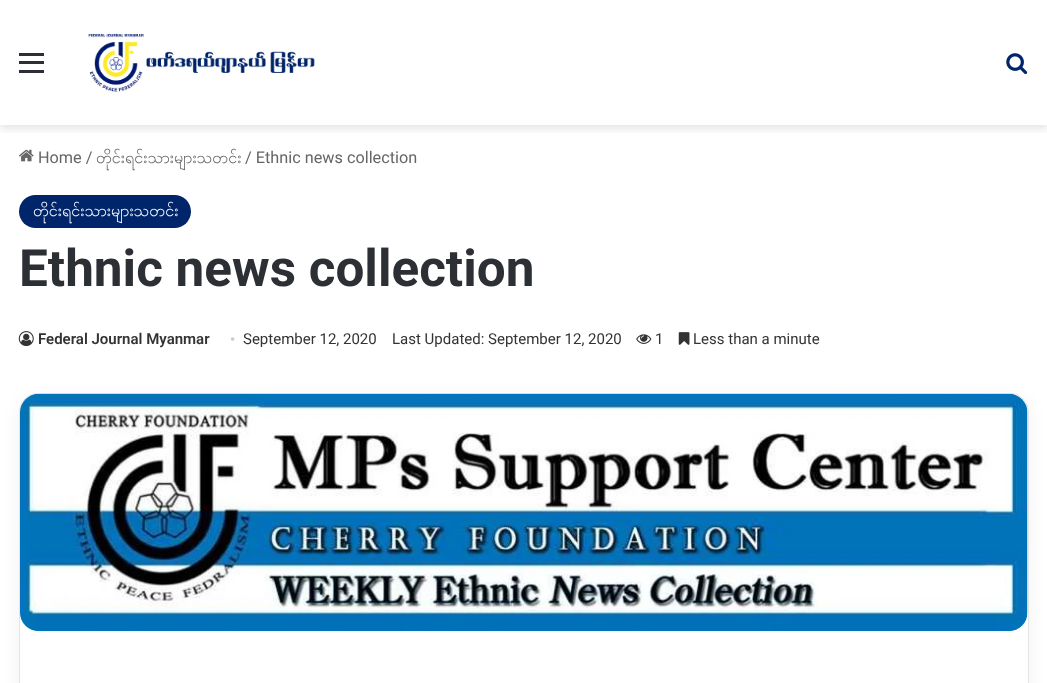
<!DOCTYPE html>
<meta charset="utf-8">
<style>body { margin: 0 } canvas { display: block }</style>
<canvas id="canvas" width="1047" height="683"></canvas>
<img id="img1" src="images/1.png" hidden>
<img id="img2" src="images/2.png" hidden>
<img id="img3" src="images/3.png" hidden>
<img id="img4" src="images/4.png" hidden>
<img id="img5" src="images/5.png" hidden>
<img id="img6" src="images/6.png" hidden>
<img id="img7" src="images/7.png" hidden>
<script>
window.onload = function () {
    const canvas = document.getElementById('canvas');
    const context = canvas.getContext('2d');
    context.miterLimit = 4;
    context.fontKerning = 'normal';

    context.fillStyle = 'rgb(255, 255, 255)';
    context.fillRect(0, 0, 1047, 683);
    context.save();
    context.beginPath();
    context.rect(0, 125, 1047, 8);
    context.clip();
    context.fillStyle = 'rgba(0, 0, 0, 0.1)';
    context.filter = 'blur(4.5px)';
    context.beginPath();
    context.rect(0, 4, 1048, 125);
    context.fill();
    context.filter = 'none';
    context.restore();
    context.fillStyle = 'rgb(44, 47, 52)';
    context.fillRect(19, 61, 25, 3);
    context.fillRect(19, 53, 25, 3);
    context.fillRect(19, 70, 25, 3);
    context.drawImage(document.getElementById('img1'), 88, 33, 227, 59);
    context.drawImage(document.getElementById('img2'), 1006, 53, 22, 22);
    context.drawImage(document.getElementById('img3'), 19, 149, 15, 13);
    context.fillStyle = 'rgb(0, 37, 107)';
    context.beginPath();
    context.roundRect(19, 195, 172, 33, 16.5);
    context.fill();
    context.drawImage(document.getElementById('img4'), 18, 331, 16, 16);
    context.drawImage(document.getElementById('img5'), 636, 334, 16, 10);
    context.drawImage(document.getElementById('img6'), 678, 332, 12, 13);
    context.fillStyle = 'rgba(0, 0, 0, 0.05)';
    context.filter = 'blur(9.5px)';
    context.beginPath();
    context.roundRect(19, 399, 1010, 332, 19);
    context.fill();
    context.filter = 'none';
    context.fillStyle = 'rgb(255, 255, 255)';
    context.beginPath();
    context.roundRect(19.5, 393.5, 1009, 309, 18.5);
    context.fill();
    context.strokeStyle = 'rgb(229, 229, 229)';
    context.stroke();
    context.drawImage(document.getElementById('img7'), 20, 393, 1008, 239);
    context.font = '16.25px Roboto';
    context.fillStyle = 'rgb(102, 102, 102)';
    context.fillText('Home /', 38, 163);
    context.font = '16.25px Padauk';
    context.fillText('တိုင်းရင်းသားများသတင်း', 96, 163);
    context.font = '16.25px Roboto';
    context.fillText('/ Ethnic news collection', 245, 163);
    context.font = '16.25px Padauk';
    context.fillStyle = 'rgb(255, 255, 255)';
    context.fillText('တိုင်းရင်းသားများသတင်း', 33, 216);
    context.font = 'bold 51.25px Roboto';
    context.fillStyle = 'rgb(44, 47, 52)';
    context.fillText('Ethnic news collection', 19, 286);
    context.font = '600 15px Roboto';
    context.fillStyle = 'rgb(51, 51, 51)';
    context.fillText('Federal Journal Myanmar', 38, 344);
    context.font = '15px Liberation Serif';
    context.fillStyle = 'rgb(204, 204, 204)';
    context.fillText('•', 230, 344);
    context.font = '15px Roboto';
    context.fillStyle = 'rgb(51, 51, 51)';
    context.fillText('September 12, 2020', 243, 344);
    context.fillText('Last Updated: September 12, 2020', 392, 344);
    context.fillText('1', 655, 344);
    context.fillText('Less than a minute', 693, 344);
};
</script>
